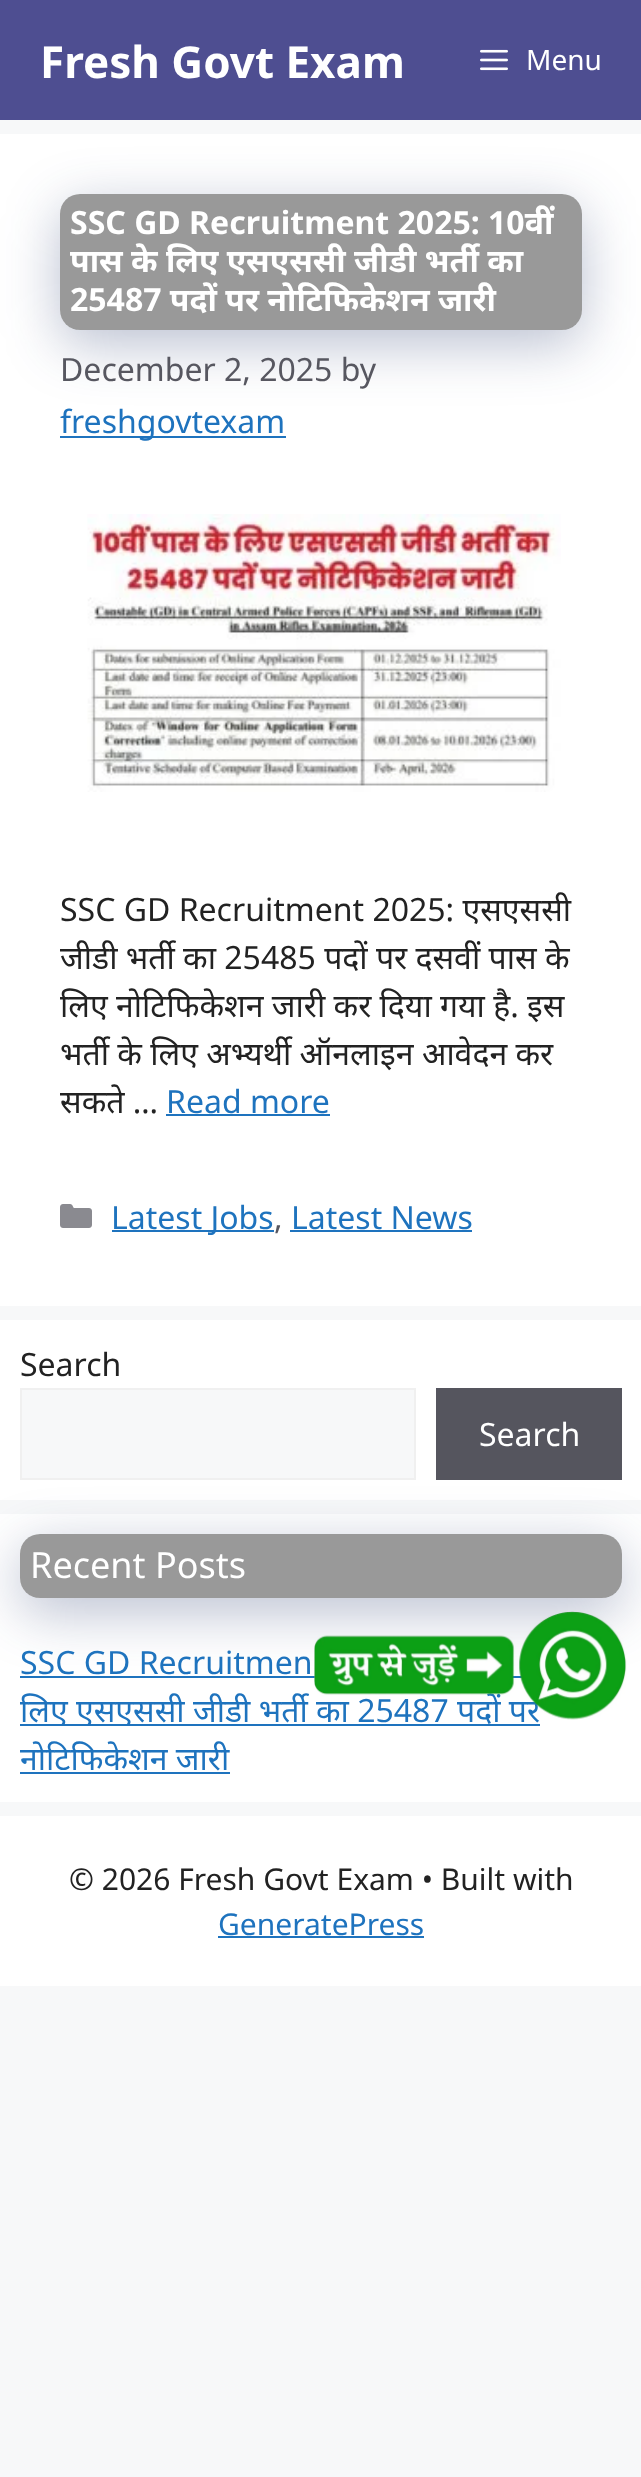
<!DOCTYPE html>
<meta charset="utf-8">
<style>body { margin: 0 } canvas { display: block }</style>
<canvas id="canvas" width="641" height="2477"></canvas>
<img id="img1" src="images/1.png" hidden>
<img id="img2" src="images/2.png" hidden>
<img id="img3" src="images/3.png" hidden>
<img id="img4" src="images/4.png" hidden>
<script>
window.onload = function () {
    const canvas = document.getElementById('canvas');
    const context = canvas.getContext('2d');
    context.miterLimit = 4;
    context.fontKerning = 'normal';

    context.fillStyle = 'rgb(247, 248, 249)';
    context.fillRect(0, 0, 641, 2477);
    context.fillStyle = 'rgb(78, 78, 145)';
    context.fillRect(0, 0, 641, 120);
    context.drawImage(document.getElementById('img1'), 480, 49, 28, 22);
    context.fillStyle = 'rgb(255, 255, 255)';
    context.fillRect(0, 134, 641, 1172);
    context.save();
    context.beginPath();
    context.moveTo(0, 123);
    context.lineTo(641, 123);
    context.lineTo(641, 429);
    context.lineTo(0, 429);
    context.closePath();
    context.moveTo(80, 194);
    context.lineTo(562, 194);
    context.bezierCurveTo(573, 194, 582, 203, 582, 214);
    context.lineTo(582, 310);
    context.bezierCurveTo(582, 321, 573, 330, 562, 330);
    context.lineTo(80, 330);
    context.bezierCurveTo(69, 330, 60, 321, 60, 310);
    context.lineTo(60, 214);
    context.bezierCurveTo(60, 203, 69, 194, 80, 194);
    context.closePath();
    context.clip('evenodd');
    context.fillStyle = 'rgba(23, 43, 99, 0.3)';
    context.filter = 'blur(28px)';
    context.beginPath();
    context.roundRect(60, 208, 522, 136, 20);
    context.fill();
    context.filter = 'none';
    context.restore();
    context.fillStyle = 'rgba(0, 0, 0, 0.4)';
    context.beginPath();
    context.roundRect(60, 194, 522, 136, 20);
    context.fill();
    context.fillStyle = 'rgb(30, 115, 190)';
    context.fillRect(60, 436, 226, 2);
    context.drawImage(document.getElementById('img2'), 87, 514, 474, 278);
    context.fillRect(166, 1114, 164, 2);
    context.drawImage(document.getElementById('img3'), 60, 1204, 32, 24);
    context.fillRect(112, 1230, 162, 2);
    context.fillRect(290, 1230, 182, 2);
    context.fillStyle = 'rgb(255, 255, 255)';
    context.fillRect(0, 1320, 641, 180);
    context.fillRect(0, 1514, 641, 288);
    context.save();
    context.beginPath();
    context.moveTo(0, 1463);
    context.lineTo(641, 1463);
    context.lineTo(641, 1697);
    context.lineTo(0, 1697);
    context.closePath();
    context.moveTo(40, 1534);
    context.lineTo(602, 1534);
    context.bezierCurveTo(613, 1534, 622, 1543, 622, 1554);
    context.lineTo(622, 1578);
    context.bezierCurveTo(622, 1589, 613, 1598, 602, 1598);
    context.lineTo(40, 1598);
    context.bezierCurveTo(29, 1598, 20, 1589, 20, 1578);
    context.lineTo(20, 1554);
    context.bezierCurveTo(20, 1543, 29, 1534, 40, 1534);
    context.closePath();
    context.clip('evenodd');
    context.fillStyle = 'rgba(23, 43, 99, 0.3)';
    context.filter = 'blur(28px)';
    context.beginPath();
    context.roundRect(20, 1548, 602, 64, 20);
    context.fill();
    context.filter = 'none';
    context.restore();
    context.fillStyle = 'rgb(247, 248, 249)';
    context.beginPath();
    context.rect(21, 1389, 394, 90);
    context.fill();
    context.strokeStyle = 'rgb(240, 240, 240)';
    context.lineWidth = 2;
    context.stroke();
    context.fillStyle = 'rgb(85, 85, 94)';
    context.fillRect(436, 1388, 186, 92);
    context.fillStyle = 'rgba(0, 0, 0, 0.4)';
    context.beginPath();
    context.roundRect(20, 1534, 602, 64, 20);
    context.fill();
    context.fillStyle = 'rgb(30, 115, 190)';
    context.fillRect(20, 1676, 502, 2);
    context.fillRect(20, 1724, 520, 2);
    context.fillRect(20, 1772, 210, 2);
    context.fillStyle = 'rgb(255, 255, 255)';
    context.fillRect(0, 1816, 641, 170);
    context.fillStyle = 'rgb(30, 115, 190)';
    context.fillRect(218, 1936, 206, 2);
    context.font = 'bold 44px Noto Sans';
    context.fillStyle = 'rgb(255, 255, 255)';
    context.fillText('Fresh Govt Exam', 40, 78);
    context.font = '28px Noto Sans';
    context.fillText('Menu', 526, 70);
    context.font = 'bold 32px Noto Sans';
    context.fillText('SSC GD Recruitment 2025: 10वीं', 70, 234);
    context.fillText('पास के लिए एसएससी जीडी भर्ती का', 70, 272);
    context.fillText('25487 पदों पर नोटिफिकेशन जारी', 70, 311);
    context.font = '32px Noto Sans';
    context.fillStyle = 'rgb(87, 87, 96)';
    context.fillText('December 2, 2025 by', 60, 381);
    context.fillStyle = 'rgb(30, 115, 190)';
    context.fillText('freshgovtexam', 60, 433);
    context.fillStyle = 'rgb(34, 34, 34)';
    context.fillText('SSC GD Recruitment 2025: एसएससी', 60, 921);
    context.fillText('जीडी भर्ती का 25485 पदों पर दसवीं पास के', 60, 969);
    context.fillText('लिए नोटिफिकेशन जारी कर दिया गया है. इस', 60, 1017);
    context.fillText('भर्ती के लिए अभ्यर्थी ऑनलाइन आवेदन कर', 60, 1065);
    context.fillText('सकते …', 60, 1113);
    context.fillStyle = 'rgb(30, 115, 190)';
    context.fillText('Read more', 166, 1113);
    context.fillText('Latest Jobs', 111, 1229);
    context.fillStyle = 'rgb(87, 87, 96)';
    context.fillText(',', 274, 1229);
    context.fillStyle = 'rgb(30, 115, 190)';
    context.fillText('Latest News', 291, 1229);
    context.fillStyle = 'rgb(34, 34, 34)';
    context.fillText('Search', 20, 1376);
    context.fillStyle = 'rgb(255, 255, 255)';
    context.fillText('Search', 479, 1446);
    context.font = '36px Noto Sans';
    context.fillText('Recent Posts', 30, 1578);
    context.font = '32px Noto Sans';
    context.fillStyle = 'rgb(30, 115, 190)';
    context.fillText('SSC GD Recruitmen', 20, 1674);
    context.fillText('लिए एसएससी जीडी भर्ती का 25487 पदों पर', 20, 1722);
    context.fillText('नोटिफिकेशन जारी', 20, 1770);
    context.drawImage(document.getElementById('img4'), 314, 1611, 313, 109);
    context.font = '30px Noto Sans';
    context.fillStyle = 'rgb(34, 34, 34)';
    context.fillText('© 2026 Fresh Govt Exam • Built with', 69, 1890);
    context.fillStyle = 'rgb(30, 115, 190)';
    context.fillText('GeneratePress', 218, 1935);
};
</script>
